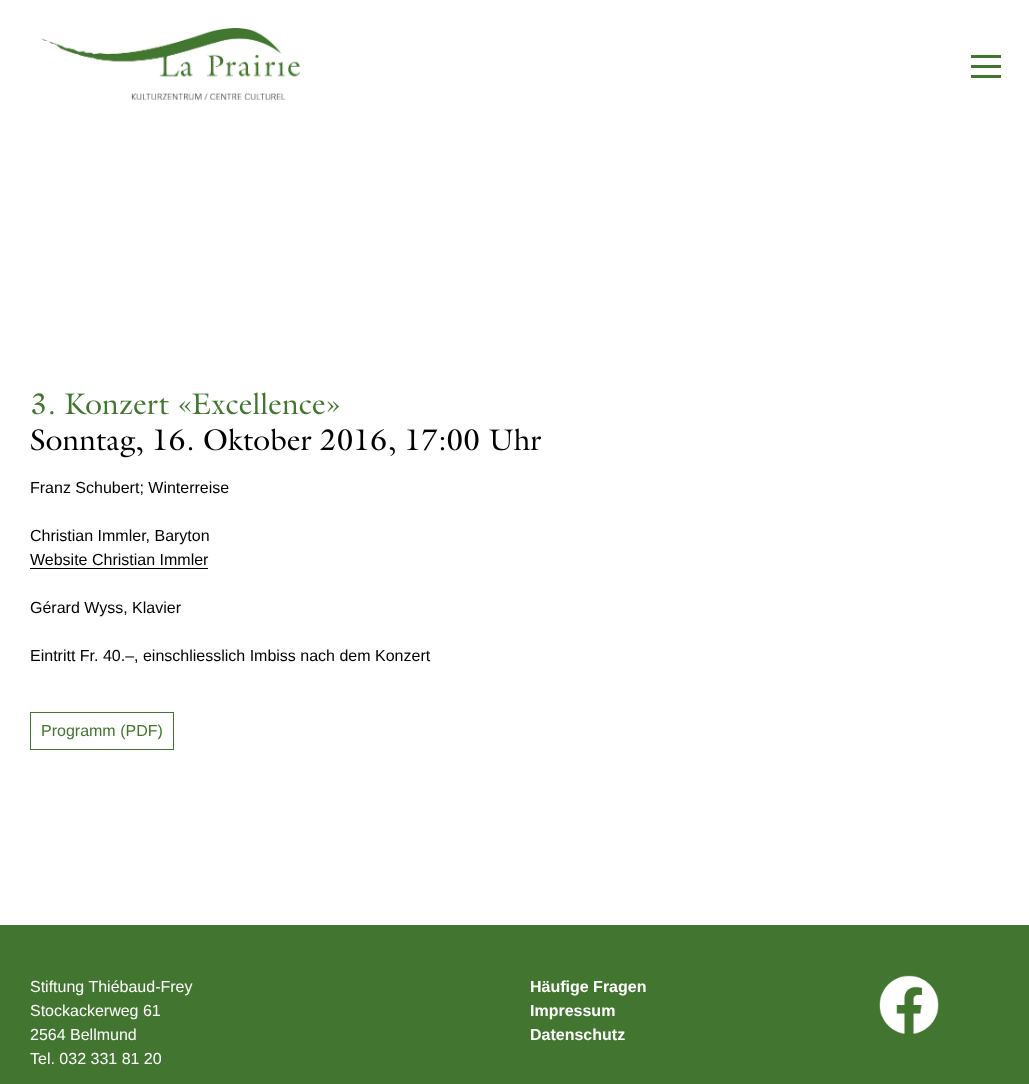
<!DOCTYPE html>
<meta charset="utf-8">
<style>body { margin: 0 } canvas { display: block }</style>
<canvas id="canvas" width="1029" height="1084"></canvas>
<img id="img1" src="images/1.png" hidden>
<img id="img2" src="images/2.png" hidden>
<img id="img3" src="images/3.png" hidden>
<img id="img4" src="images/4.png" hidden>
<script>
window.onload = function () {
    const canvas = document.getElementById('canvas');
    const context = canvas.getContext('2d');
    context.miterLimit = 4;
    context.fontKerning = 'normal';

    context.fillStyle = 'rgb(255, 255, 255)';
    context.fillRect(0, 0, 1029, 1084);
    context.drawImage(document.getElementById('img1'), 40, 28, 260, 72);
    context.fillStyle = 'rgb(66, 118, 48)';
    context.fillRect(971, 65, 30, 3);
    context.fillRect(971, 55, 30, 3);
    context.fillRect(971, 75, 30, 3);
    context.drawImage(document.getElementById('img2'), 32, 392, 307, 23);
    context.drawImage(document.getElementById('img3'), 30, 428, 512, 30);
    context.fillStyle = 'rgb(0, 0, 0)';
    context.fillRect(30, 568, 178, 1);
    context.strokeStyle = 'rgb(66, 118, 48)';
    context.strokeRect(30.5, 712.5, 143, 37);
    context.fillStyle = 'rgb(66, 118, 48)';
    context.fillRect(0, 925, 1029, 159);
    context.drawImage(document.getElementById('img4'), 879, 975, 60, 59);
    context.font = '16px Liberation Sans';
    context.fillStyle = 'rgb(0, 0, 0)';
    context.fillText('Franz Schubert; Winterreise', 30, 493);
    context.fillText('Christian Immler, Baryton', 30, 541);
    context.fillText('Website Christian Immler', 30, 565);
    context.fillText('Gérard Wyss, Klavier', 30, 613);
    context.fillText('Eintritt Fr. 40.–, einschliesslich Imbiss nach dem Konzert', 30, 661);
    context.fillStyle = 'rgb(66, 118, 48)';
    context.fillText('Programm (PDF)', 41, 736);
    context.fillStyle = 'rgb(255, 255, 255)';
    context.fillText('Stiftung Thiébaud-Frey', 30, 992);
    context.fillText('Stockackerweg 61', 30, 1016);
    context.fillText('2564 Bellmund', 30, 1040);
    context.fillText('Tel. 032 331 81 20', 30, 1064);
    context.font = 'bold 16px Liberation Sans';
    context.fillText('Häufige Fragen', 530, 992);
    context.fillText('Impressum', 530, 1016);
    context.fillText('Datenschutz', 530, 1040);
};
</script>
